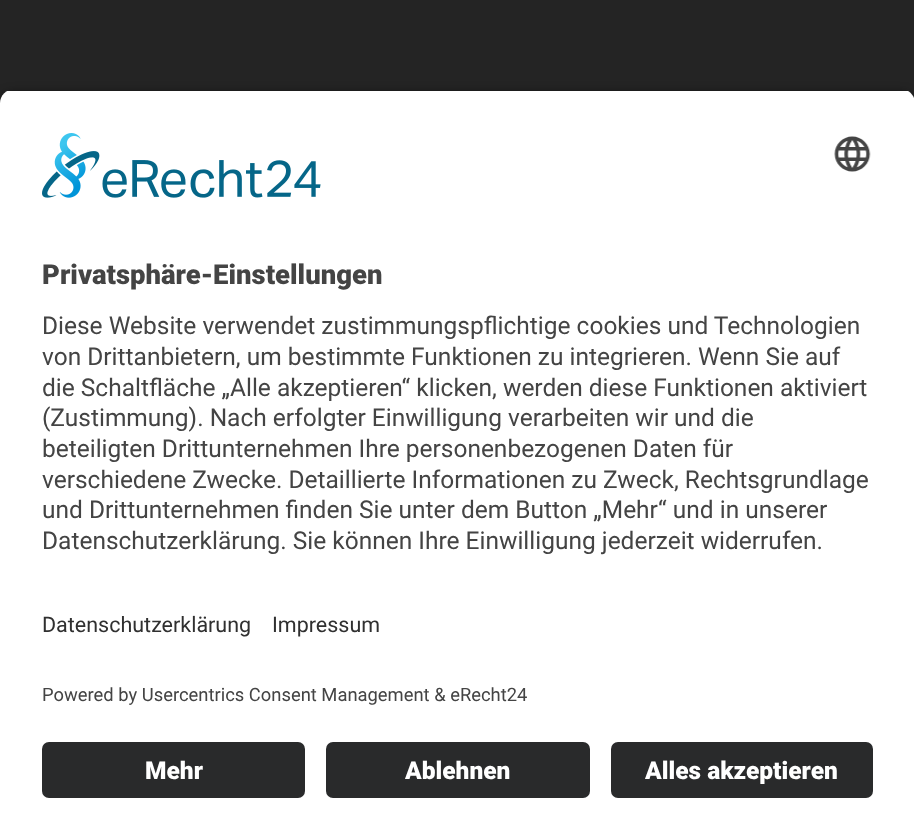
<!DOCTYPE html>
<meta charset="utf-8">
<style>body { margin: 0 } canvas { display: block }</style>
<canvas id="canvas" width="914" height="840"></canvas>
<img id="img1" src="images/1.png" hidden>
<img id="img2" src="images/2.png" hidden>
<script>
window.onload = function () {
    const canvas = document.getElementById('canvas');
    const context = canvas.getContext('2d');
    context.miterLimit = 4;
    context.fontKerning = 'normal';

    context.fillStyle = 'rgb(36, 36, 36)';
    context.fillRect(0, 0, 914, 840);
    context.fillStyle = 'rgba(0, 0, 0, 0.8)';
    context.filter = 'blur(6px)';
    context.beginPath();
    context.roundRect(0, 95, 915, 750, 14);
    context.fill();
    context.filter = 'none';
    context.save();
    context.beginPath();
    context.moveTo(14, 89);
    context.lineTo(901, 89);
    context.bezierCurveTo(908.5, 89, 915, 95.5, 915, 103);
    context.lineTo(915, 564);
    context.lineTo(0, 564);
    context.lineTo(0, 103);
    context.bezierCurveTo(0, 95.5, 6.5, 89, 14, 89);
    context.closePath();
    context.clip();
    context.fillStyle = 'rgb(255, 255, 255)';
    context.fillRect(0, 91, 914, 473);
    context.restore();
    context.drawImage(document.getElementById('img1'), 42, 133, 279, 65);
    context.drawImage(document.getElementById('img2'), 834, 136, 37, 36);
    context.fillStyle = 'rgb(255, 255, 255)';
    context.fillRect(0, 564, 914, 276);
    context.fillStyle = 'rgb(41, 42, 43)';
    context.beginPath();
    context.roundRect(42, 742, 263, 56, 7);
    context.fill();
    context.beginPath();
    context.roundRect(326, 742, 264, 56, 7);
    context.fill();
    context.beginPath();
    context.roundRect(611, 742, 262, 56, 7);
    context.fill();
    context.font = '900 27.5px Roboto';
    context.fillStyle = 'rgb(68, 68, 68)';
    context.fillText('Privatsphäre-Einstellungen', 42, 284);
    context.font = '24.5px Roboto';
    context.fillText('Diese Website verwendet zustimmungspflichtige cookies und Technologien', 42, 334);
    context.fillText('von Drittanbietern, um bestimmte Funktionen zu integrieren. Wenn Sie auf', 42, 365);
    context.fillText('die Schaltfläche „Alle akzeptieren“ klicken, werden diese Funktionen aktiviert', 42, 396);
    context.fillText('(Zustimmung). Nach erfolgter Einwilligung verarbeiten wir und die', 42, 426);
    context.fillText('beteiligten Drittunternehmen Ihre personenbezogenen Daten für', 42, 457);
    context.fillText('verschiedene Zwecke. Detaillierte Informationen zu Zweck, Rechtsgrundlage', 42, 488);
    context.fillText('und Drittunternehmen finden Sie unter dem Button „Mehr“ und in unserer', 42, 518);
    context.fillText('Datenschutzerklärung. Sie können Ihre Einwilligung jederzeit widerrufen.', 42, 549);
    context.font = '21.5px Roboto';
    context.fillStyle = 'rgb(48, 48, 48)';
    context.fillText('Datenschutzerklärung', 42, 632);
    context.fillText('Impressum', 272, 632);
    context.font = '18.4px Roboto';
    context.fillStyle = 'rgb(68, 68, 68)';
    context.fillText('Powered by Usercentrics Consent Management & eRecht24', 42, 701);
    context.font = '900 24.5px Roboto';
    context.fillStyle = 'rgb(255, 255, 255)';
    context.fillText('Mehr', 145, 779);
    context.fillText('Ablehnen', 405, 779);
    context.fillText('Alles akzeptieren', 645, 779);
};
</script>
